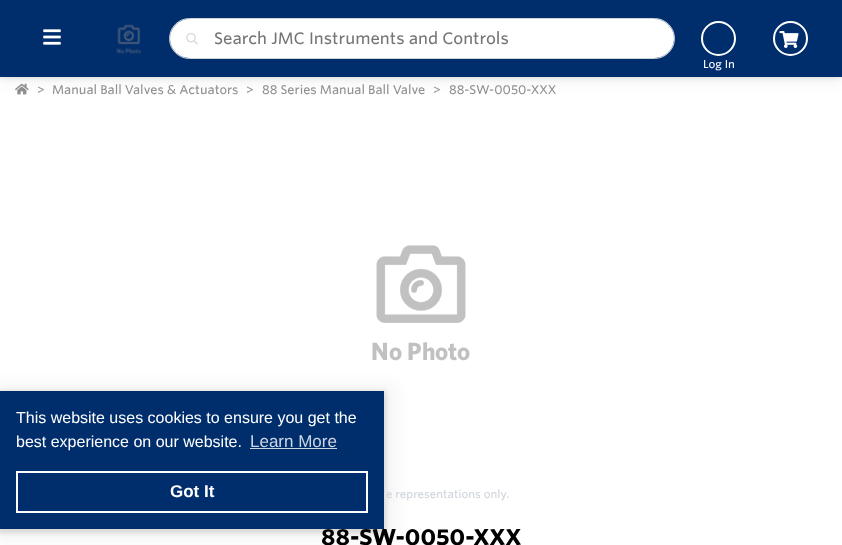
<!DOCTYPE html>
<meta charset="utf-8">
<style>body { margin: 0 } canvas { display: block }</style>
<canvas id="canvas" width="842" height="545"></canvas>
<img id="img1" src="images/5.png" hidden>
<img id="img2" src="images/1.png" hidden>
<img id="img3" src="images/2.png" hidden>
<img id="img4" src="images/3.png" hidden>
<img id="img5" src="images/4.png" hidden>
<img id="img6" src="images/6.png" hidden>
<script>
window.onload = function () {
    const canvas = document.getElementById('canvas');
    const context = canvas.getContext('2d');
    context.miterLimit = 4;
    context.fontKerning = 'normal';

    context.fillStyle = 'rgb(255, 255, 255)';
    context.fillRect(0, 0, 842, 545);
    context.drawImage(document.getElementById('img1'), 15, 83, 14, 12);
    context.fillStyle = 'rgba(0, 0, 0, 0.07)';
    context.filter = 'blur(8px)';
    context.beginPath();
    context.rect(0, 2, 842, 77);
    context.fill();
    context.filter = 'none';
    context.fillStyle = 'rgba(0, 0, 0, 0.1)';
    context.filter = 'blur(2.5px)';
    context.beginPath();
    context.rect(0, 1, 842, 77);
    context.fill();
    context.filter = 'none';
    context.fillStyle = 'rgb(0, 46, 109)';
    context.fillRect(0, 0, 842, 77);
    context.drawImage(document.getElementById('img2'), 43, 29, 18, 16);
    context.drawImage(document.getElementById('img3'), 116, 24, 25, 30);
    context.beginPath();
    context.roundRect(169.5, 18.5, 505, 40, 20);
    context.strokeStyle = 'rgb(206, 212, 218)';
    context.stroke();
    context.fillStyle = 'rgb(255, 255, 255)';
    context.beginPath();
    context.roundRect(170, 19, 504, 39, 19.5);
    context.fill();
    context.drawImage(document.getElementById('img4'), 186, 33, 12, 12);
    context.beginPath();
    context.arc(790.5, 38.5, 16.5, 0, 2 * Math.PI);
    context.strokeStyle = 'rgb(255, 255, 255)';
    context.lineWidth = 2;
    context.stroke();
    context.drawImage(document.getElementById('img5'), 779, 31, 20, 17);
    context.beginPath();
    context.arc(718.5, 38.5, 16.5, 0, 2 * Math.PI);
    context.stroke();
    context.drawImage(document.getElementById('img6'), 372, 245, 98, 116);
    context.fillStyle = 'rgba(0, 0, 0, 0.04)';
    context.filter = 'blur(8px)';
    context.beginPath();
    context.rect(-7, 384, 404, 158);
    context.fill();
    context.filter = 'none';
    context.fillStyle = 'rgba(0, 0, 0, 0.12)';
    context.filter = 'blur(2.5px)';
    context.beginPath();
    context.rect(-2, 391, 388, 142);
    context.fill();
    context.filter = 'none';
    context.font = '300 16px "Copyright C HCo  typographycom"';
    context.fillStyle = 'rgb(117, 117, 117)';
    context.fillText('Search JMC Instruments and Controls', 214, 44);
    context.font = '300 11px "Copyright C HCo  typographycom"';
    context.fillStyle = 'rgb(255, 255, 255)';
    context.fillText('Log In', 703, 68);
    context.font = '300 12.2px "Copyright C HCo  typographycom"';
    context.fillStyle = 'rgb(144, 144, 144)';
    context.fillText('>', 37, 94);
    context.fillText('Manual Ball Valves & Actuators', 52, 94);
    context.fillText('>', 246, 94);
    context.fillText('88 Series Manual Ball Valve', 262, 94);
    context.fillText('>', 433, 94);
    context.fillText('88-SW-0050-XXX', 449, 94);
    context.font = '300 11px "Copyright C HCo  typographycom"';
    context.fillStyle = 'rgb(206, 212, 218)';
    context.fillText('e representations only.', 386, 498);
    context.font = '22px "Copyright C HCo  typographycom"';
    context.fillStyle = 'rgb(0, 0, 0)';
    context.fillText('88-SW-0050-XXX', 321, 545);
    context.fillStyle = 'rgb(0, 46, 109)';
    context.fillRect(0, 391, 384, 138);
    context.font = '16px Liberation Sans';
    context.fillStyle = 'rgb(255, 255, 255)';
    context.fillText('This website uses cookies to ensure you get the', 16, 423);
    context.fillText('best experience on our website.', 16, 447);
    context.font = '17px Liberation Sans';
    context.fillStyle = 'rgb(204, 213, 226)';
    context.fillText('Learn More', 250, 447);
    context.fillRect(250, 448, 87, 1);
    context.strokeRect(17, 472, 350, 40);
    context.font = 'bold 17px Liberation Sans';
    context.fillStyle = 'rgb(255, 255, 255)';
    context.fillText('Got It', 170, 497);
};
</script>
